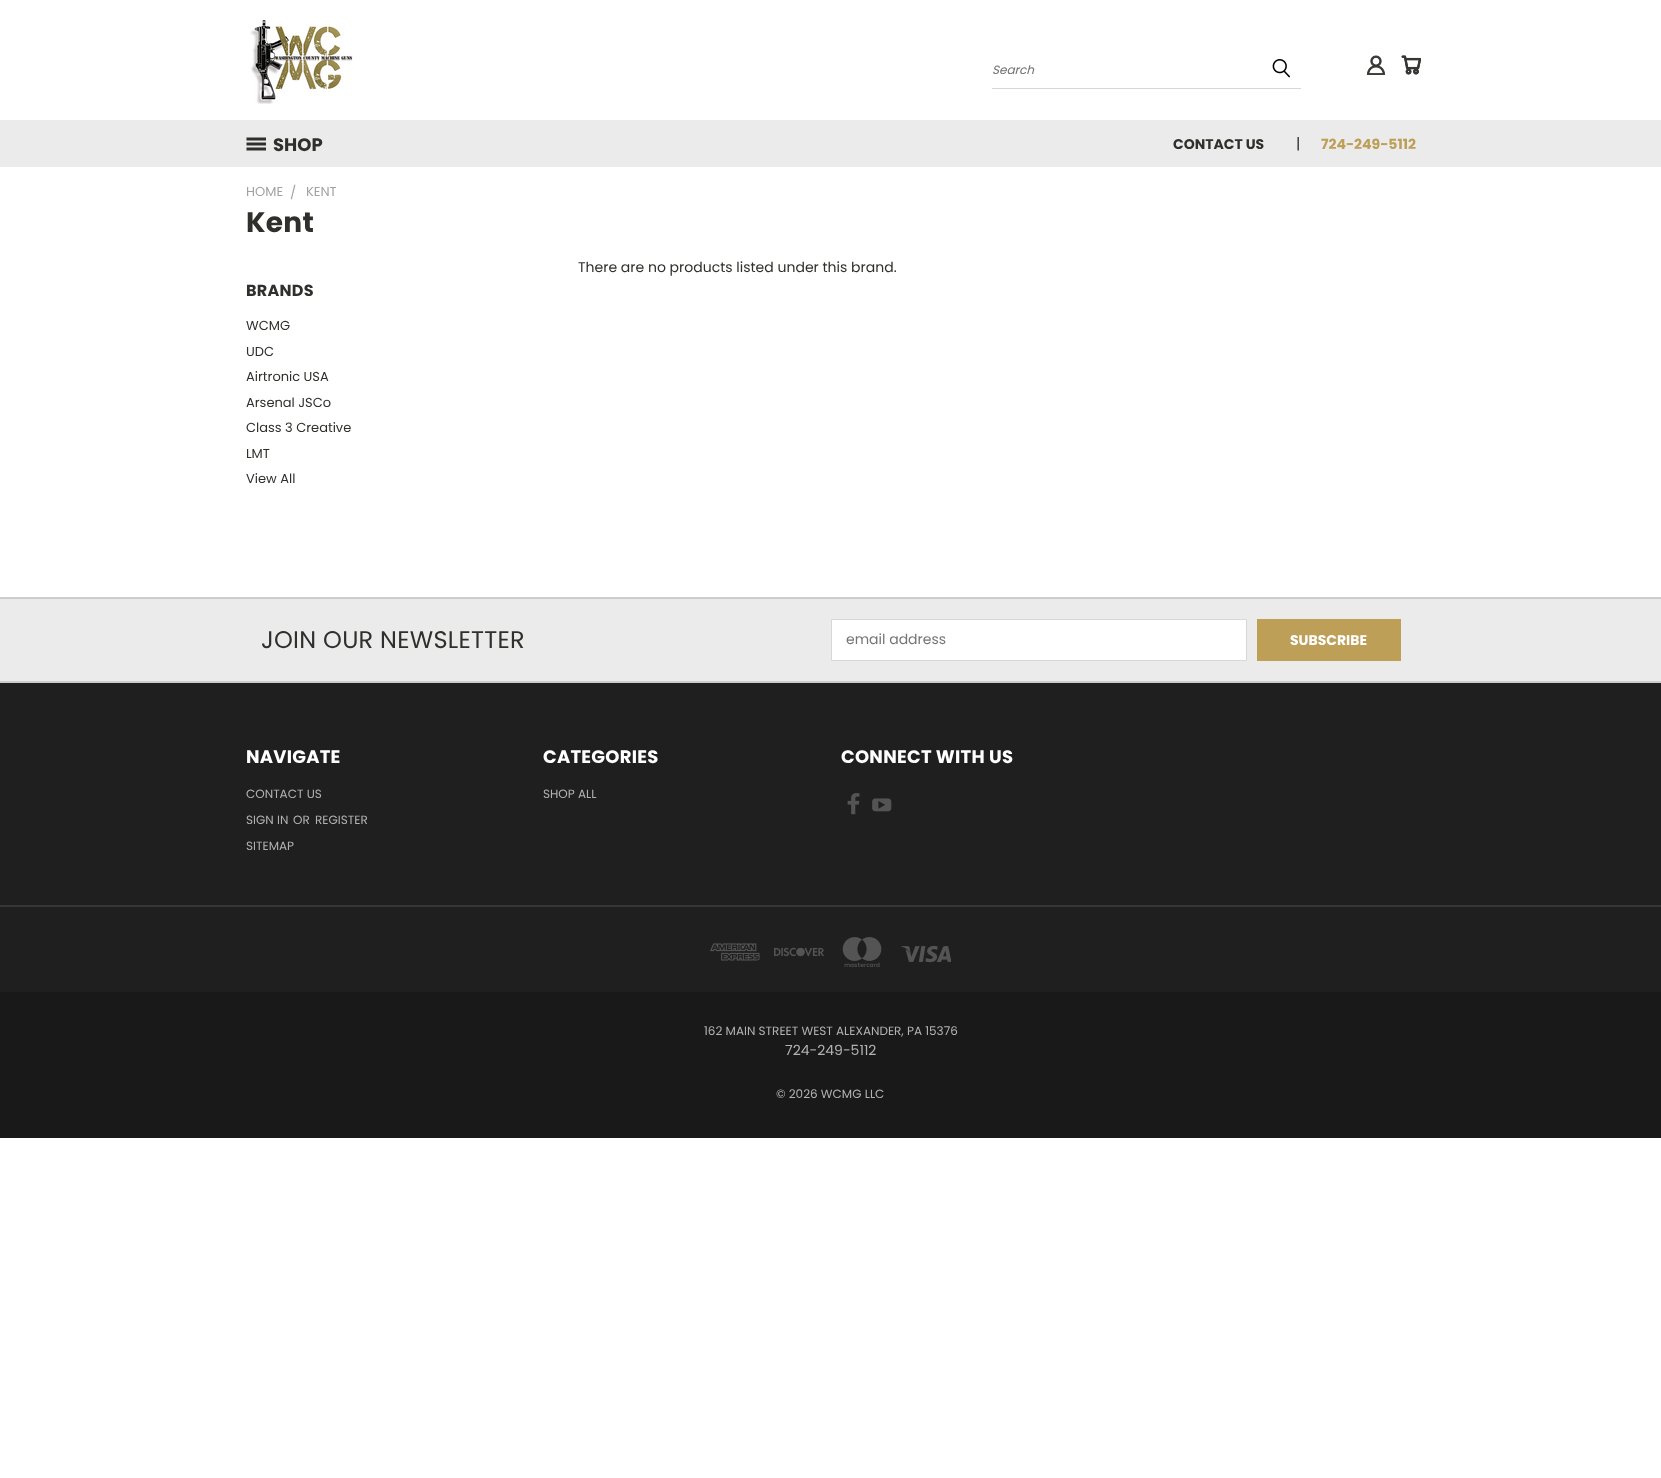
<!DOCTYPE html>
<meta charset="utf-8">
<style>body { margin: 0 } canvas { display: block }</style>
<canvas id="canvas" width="1661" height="1478"></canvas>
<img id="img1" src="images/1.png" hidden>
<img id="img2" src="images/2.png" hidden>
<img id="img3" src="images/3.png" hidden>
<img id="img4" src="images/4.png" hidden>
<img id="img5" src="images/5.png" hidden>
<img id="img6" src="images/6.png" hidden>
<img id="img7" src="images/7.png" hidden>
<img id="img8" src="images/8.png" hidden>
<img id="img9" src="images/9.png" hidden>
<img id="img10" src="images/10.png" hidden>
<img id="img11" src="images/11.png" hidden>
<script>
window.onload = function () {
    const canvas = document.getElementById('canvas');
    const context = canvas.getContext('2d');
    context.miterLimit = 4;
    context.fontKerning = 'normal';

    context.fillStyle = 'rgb(255, 255, 255)';
    context.fillRect(0, 0, 1661, 1478);
    context.drawImage(document.getElementById('img1'), 250, 20, 103, 84);
    context.fillStyle = 'rgb(215, 215, 215)';
    context.fillRect(992, 88, 309, 1);
    context.drawImage(document.getElementById('img2'), 1272, 59, 18, 19);
    context.drawImage(document.getElementById('img3'), 1367, 55, 18, 20);
    context.drawImage(document.getElementById('img4'), 1401, 55, 20, 20);
    context.fillStyle = 'rgb(235, 235, 235)';
    context.fillRect(0, 120, 1661, 47);
    context.drawImage(document.getElementById('img5'), 246, 137, 20, 14);
    context.fillRect(0, 599, 1661, 82);
    context.fillStyle = 'rgb(205, 204, 204)';
    context.fillRect(0, 597, 1661, 2);
    context.fillStyle = 'rgb(255, 255, 255)';
    context.beginPath();
    context.rect(831.5, 619.5, 415, 41);
    context.fill();
    context.strokeStyle = 'rgb(215, 215, 215)';
    context.stroke();
    context.fillStyle = 'rgb(190, 159, 87)';
    context.fillRect(1257, 619, 144, 42);
    context.fillStyle = 'rgb(31, 31, 31)';
    context.fillRect(0, 683, 1661, 309);
    context.fillStyle = 'rgb(205, 204, 204)';
    context.fillRect(0, 681, 1661, 2);
    context.drawImage(document.getElementById('img6'), 847, 793, 13, 22);
    context.drawImage(document.getElementById('img7'), 872, 798, 20, 14);
    context.fillStyle = 'rgb(54, 54, 54)';
    context.fillRect(0, 905, 1661, 2);
    context.drawImage(document.getElementById('img8'), 710, 943, 50, 18);
    context.drawImage(document.getElementById('img9'), 774, 947, 50, 10);
    context.drawImage(document.getElementById('img10'), 842, 937, 40, 30);
    context.drawImage(document.getElementById('img11'), 901, 945, 50, 18);
    context.fillStyle = 'rgb(25, 25, 25)';
    context.fillRect(0, 992, 1661, 146);
    context.font = 'italic 12px Poppins';
    context.fillStyle = 'rgb(112, 112, 110)';
    context.fillText('Search', 992, 74);
    context.font = 'bold 18px Poppins';
    context.fillStyle = 'rgb(47, 47, 43)';
    context.fillText('SHOP', 273, 151);
    context.font = 'bold 14px Poppins';
    context.fillText('CONTACT US', 1173, 149);
    context.font = '15px Poppins';
    context.fillText('|', 1296, 149);
    context.font = 'bold 14px Poppins';
    context.fillStyle = 'rgb(190, 159, 87)';
    context.fillText('724-249-5112', 1321, 149);
    context.font = '13px Poppins';
    context.fillStyle = 'rgb(162, 162, 162)';
    context.fillText('HOME', 246, 196);
    context.fillText('/', 290, 197);
    context.fillText('KENT', 306, 196);
    context.letterSpacing = '0.25px';
    context.font = 'bold 28px Poppins';
    context.fillStyle = 'rgb(47, 47, 43)';
    context.fillText('Kent', 246, 232);
    context.letterSpacing = '0px';
    context.font = '14px Poppins';
    context.fillText('There are no products listed under this brand.', 578, 272);
    context.letterSpacing = '0.25px';
    context.font = 'bold 16px Poppins';
    context.fillText('BRANDS', 246, 296);
    context.letterSpacing = '0px';
    context.font = '13px Poppins';
    context.fillText('WCMG', 246, 330);
    context.fillText('UDC', 246, 356);
    context.fillText('Airtronic USA', 246, 381);
    context.fillText('Arsenal JSCo', 246, 407);
    context.fillText('Class 3 Creative', 246, 432);
    context.fillText('LMT', 246, 458);
    context.fillText('View All', 246, 483);
    context.letterSpacing = '0.25px';
    context.font = '24px Poppins';
    context.fillText('JOIN OUR NEWSLETTER', 261, 648);
    context.letterSpacing = '0px';
    context.font = '14px Poppins';
    context.fillStyle = 'rgb(117, 117, 117)';
    context.fillText('email address', 846, 644);
    context.font = 'bold 14px Poppins';
    context.fillStyle = 'rgb(255, 255, 255)';
    context.fillText('SUBSCRIBE', 1290, 645);
    context.letterSpacing = '0.25px';
    context.font = 'bold 18px Poppins';
    context.fillText('NAVIGATE', 246, 763);
    context.letterSpacing = '0px';
    context.font = '12px Poppins';
    context.fillStyle = 'rgb(178, 178, 178)';
    context.fillText('CONTACT US', 246, 798);
    context.fillText('SIGN IN', 246, 824);
    context.fillText('OR', 293, 824);
    context.fillText('REGISTER', 315, 824);
    context.fillText('SITEMAP', 246, 850);
    context.letterSpacing = '0.25px';
    context.font = 'bold 18px Poppins';
    context.fillStyle = 'rgb(255, 255, 255)';
    context.fillText('CATEGORIES', 543, 763);
    context.letterSpacing = '0px';
    context.font = '12px Poppins';
    context.fillStyle = 'rgb(178, 178, 178)';
    context.fillText('SHOP ALL', 543, 798);
    context.letterSpacing = '0.25px';
    context.font = 'bold 18px Poppins';
    context.fillStyle = 'rgb(255, 255, 255)';
    context.fillText('CONNECT WITH US', 841, 763);
    context.letterSpacing = '0px';
    context.font = '12px Poppins';
    context.fillStyle = 'rgb(178, 178, 178)';
    context.fillText('162 MAIN STREET WEST ALEXANDER, PA 15376', 704, 1035);
    context.font = '14px Poppins';
    context.fillText('724-249-5112', 785, 1055);
    context.font = '12px Poppins';
    context.fillText('© 2026 WCMG LLC', 776, 1098);
};
</script>
